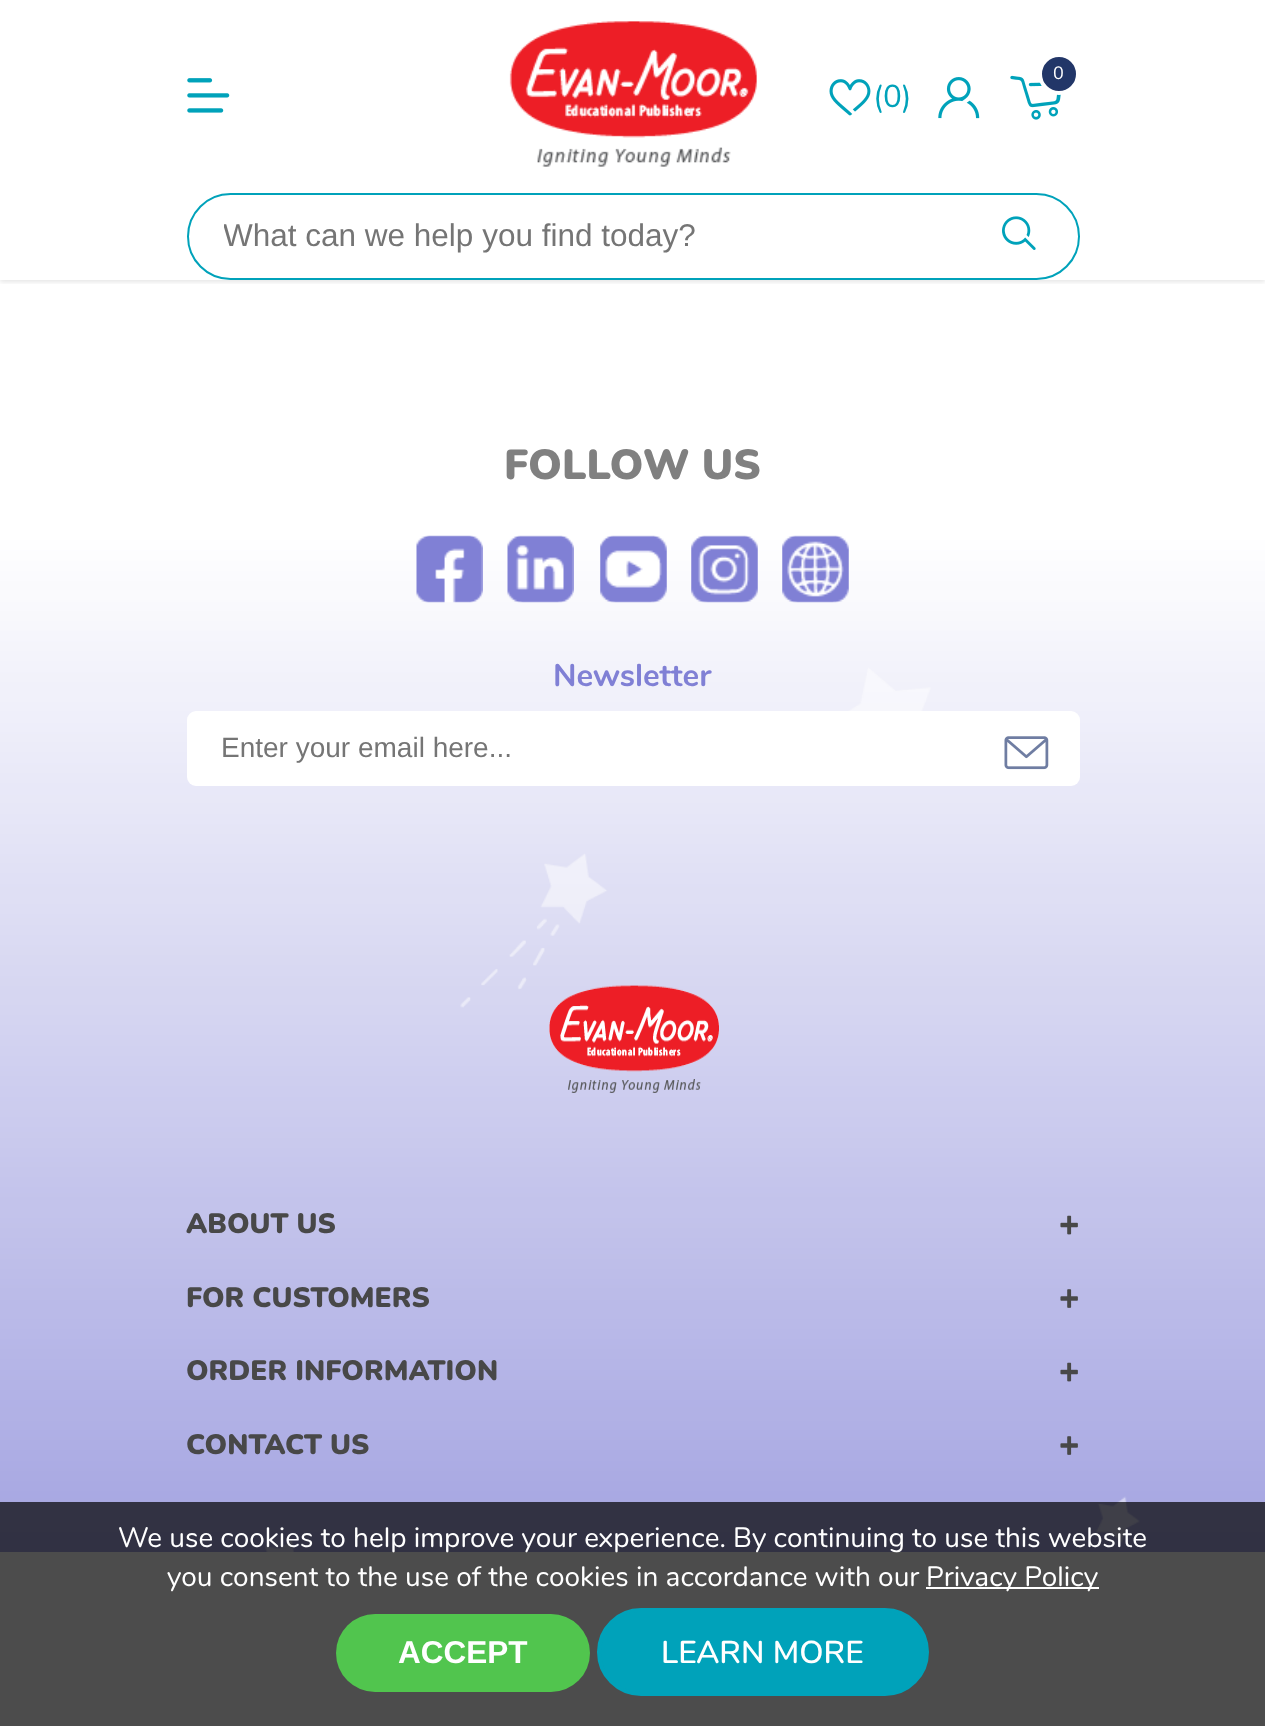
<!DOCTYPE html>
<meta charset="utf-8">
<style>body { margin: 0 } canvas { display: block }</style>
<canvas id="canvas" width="1265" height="1726"></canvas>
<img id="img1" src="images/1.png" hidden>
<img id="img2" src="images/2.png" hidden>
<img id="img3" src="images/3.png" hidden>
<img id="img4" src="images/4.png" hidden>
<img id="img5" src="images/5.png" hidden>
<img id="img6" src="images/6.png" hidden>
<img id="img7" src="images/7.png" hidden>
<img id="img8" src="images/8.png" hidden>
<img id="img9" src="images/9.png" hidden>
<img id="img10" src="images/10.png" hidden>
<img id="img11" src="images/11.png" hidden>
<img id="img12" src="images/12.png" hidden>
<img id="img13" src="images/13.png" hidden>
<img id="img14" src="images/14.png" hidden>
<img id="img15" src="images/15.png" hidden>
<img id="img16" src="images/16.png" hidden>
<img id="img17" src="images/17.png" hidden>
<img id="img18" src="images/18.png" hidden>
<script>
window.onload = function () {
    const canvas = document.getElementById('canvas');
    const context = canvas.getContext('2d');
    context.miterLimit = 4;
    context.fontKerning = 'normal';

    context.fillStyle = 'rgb(255, 255, 255)';
    context.fillRect(0, 0, 1265, 1726);
    context.save();
    context.beginPath();
    context.rect(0, 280, 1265, 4);
    context.clip();
    context.fillStyle = 'rgba(0, 0, 0, 0.1)';
    context.filter = 'blur(2.5px)';
    context.beginPath();
    context.rect(0, 2, 1265, 280);
    context.fill();
    context.filter = 'none';
    context.restore();
    context.drawImage(document.getElementById('img1'), 187, 78, 43, 35);
    context.drawImage(document.getElementById('img2'), 509, 21, 248, 146);
    context.drawImage(document.getElementById('img3'), 1010, 75, 51, 45);
    context.fillStyle = 'rgb(34, 54, 104)';
    context.beginPath();
    context.arc(1059, 74, 19, 0, 2 * Math.PI);
    context.fill();
    context.strokeStyle = 'rgb(255, 255, 255)';
    context.lineWidth = 4;
    context.stroke();
    context.drawImage(document.getElementById('img4'), 829, 79, 42, 37);
    context.drawImage(document.getElementById('img5'), 938, 77, 42, 42);
    context.beginPath();
    context.roundRect(188, 194, 891, 85, 42.5);
    context.strokeStyle = 'rgb(0, 162, 186)';
    context.lineWidth = 2;
    context.stroke();
    context.drawImage(document.getElementById('img6'), 1002, 216, 34, 34);
    context.drawImage(document.getElementById('img7'), 0, 396, 1265, 1156);
    context.drawImage(document.getElementById('img8'), 416, 535, 67, 68);
    context.drawImage(document.getElementById('img9'), 507, 535, 67, 68);
    context.drawImage(document.getElementById('img10'), 600, 535, 67, 68);
    context.drawImage(document.getElementById('img11'), 691, 535, 67, 68);
    context.drawImage(document.getElementById('img12'), 782, 535, 67, 68);
    context.fillStyle = 'rgb(255, 255, 255)';
    context.beginPath();
    context.roundRect(187, 711, 893, 75, 9);
    context.fill();
    context.drawImage(document.getElementById('img13'), 1004, 736, 45, 34);
    context.drawImage(document.getElementById('img14'), 549, 985, 170, 108);
    context.drawImage(document.getElementById('img15'), 1060, 1215, 18, 20);
    context.drawImage(document.getElementById('img16'), 1060, 1289, 18, 19);
    context.drawImage(document.getElementById('img17'), 1060, 1362, 18, 20);
    context.drawImage(document.getElementById('img18'), 1060, 1436, 18, 19);
    context.fillStyle = 'rgba(0, 0, 0, 0.7)';
    context.fillRect(0, 1502, 1265, 224);
    context.fillStyle = 'rgb(255, 255, 255)';
    context.fillRect(926, 1587, 173, 2);
    context.fillStyle = 'rgb(81, 197, 78)';
    context.beginPath();
    context.roundRect(336, 1614, 254, 78, 39);
    context.fill();
    context.fillStyle = 'rgb(0, 162, 186)';
    context.beginPath();
    context.roundRect(599, 1610, 328, 84, 42);
    context.fill();
    context.lineWidth = 4;
    context.stroke();
    context.font = '18px Nunito';
    context.fillStyle = 'rgb(255, 255, 255)';
    context.fillText('0', 1053, 79);
    context.font = '31.5px Nunito';
    context.fillStyle = 'rgb(0, 162, 186)';
    context.fillText('(0)', 873, 107);
    context.save();
    context.beginPath();
    context.rect(224, 219, 775, 37);
    context.clip();
    context.font = '31.5px Liberation Sans';
    context.fillStyle = 'rgb(117, 117, 117)';
    context.fillText('What can we help you find today?', 223, 246);
    context.restore();
    context.font = '900 42px Nunito';
    context.fillStyle = 'rgb(128, 128, 128)';
    context.fillText('FOLLOW US', 504, 479);
    context.font = 'bold 31.5px Nunito';
    context.fillStyle = 'rgb(128, 128, 213)';
    context.fillText('Newsletter', 553, 686);
    context.font = '28px Liberation Sans';
    context.fillStyle = 'rgb(117, 117, 117)';
    context.fillText('Enter your email here...', 221, 757);
    context.font = '900 28px Nunito';
    context.fillStyle = 'rgb(72, 72, 72)';
    context.fillText('ABOUT US', 186, 1233);
    context.fillText('FOR CUSTOMERS', 186, 1307);
    context.fillText('ORDER INFORMATION', 186, 1380);
    context.fillText('CONTACT US', 186, 1454);
    context.font = '28px Nunito';
    context.fillStyle = 'rgb(255, 255, 255)';
    context.fillText('We use cookies to help improve your experience. By continuing to use this website', 118, 1547);
    context.fillText('you consent to the use of the cookies in accordance with our', 167, 1586);
    context.fillText('Privacy Policy', 926, 1586);
    context.font = 'bold 31.5px Liberation Sans';
    context.fillText('ACCEPT', 398, 1663);
    context.font = '600 31.5px Nunito';
    context.fillText('LEARN MORE', 661, 1663);
};
</script>
